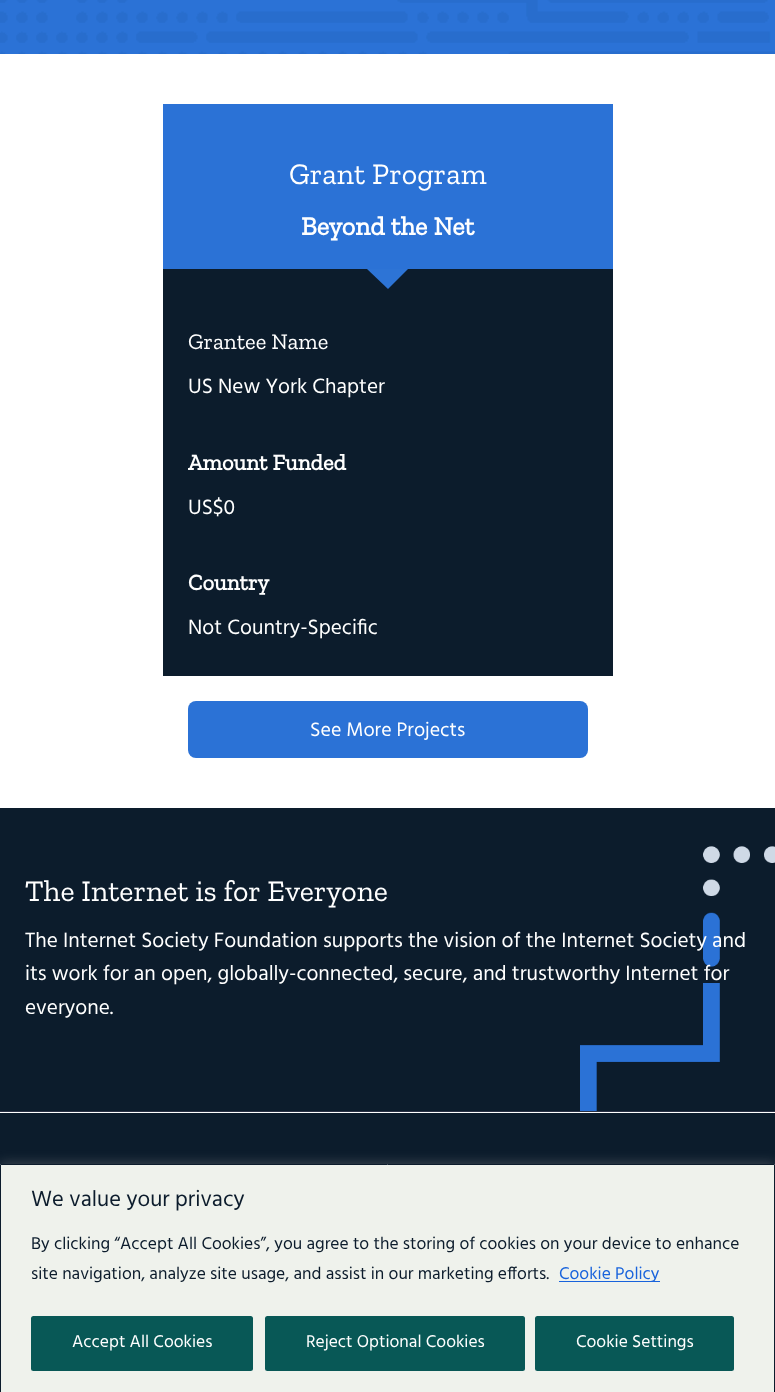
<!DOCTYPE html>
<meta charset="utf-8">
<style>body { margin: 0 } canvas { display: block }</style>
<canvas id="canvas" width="775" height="1392"></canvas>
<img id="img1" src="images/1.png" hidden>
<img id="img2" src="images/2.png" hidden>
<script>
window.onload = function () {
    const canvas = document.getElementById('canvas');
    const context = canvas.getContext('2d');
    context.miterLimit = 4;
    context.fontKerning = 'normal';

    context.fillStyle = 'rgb(255, 255, 255)';
    context.fillRect(0, 0, 775, 1392);
    context.drawImage(document.getElementById('img1'), 0, 0, 775, 54);
    context.fillStyle = 'rgb(43, 114, 214)';
    context.fillRect(163, 104, 450, 165);
    context.fillStyle = 'rgb(12, 28, 44)';
    context.fillRect(163, 269, 450, 407);
    context.fillStyle = 'rgb(45, 116, 214)';
    context.beginPath();
    context.moveTo(388, 289);
    context.lineTo(367, 269);
    context.lineTo(408, 269);
    context.closePath();
    context.fill();
    context.fillStyle = 'rgb(43, 114, 214)';
    context.beginPath();
    context.roundRect(188, 701, 400, 57, 8);
    context.fill();
    context.fillStyle = 'rgb(12, 28, 44)';
    context.fillRect(0, 808, 775, 303);
    context.drawImage(document.getElementById('img2'), 580, 846, 195, 265);
    context.fillStyle = 'rgb(42, 48, 68)';
    context.fillRect(0, 1111, 775, 1);
    context.fillStyle = 'rgb(12, 28, 44)';
    context.fillRect(0, 1113, 775, 51);
    context.fillStyle = 'rgba(172, 171, 171, 0.3)';
    context.filter = 'blur(6px)';
    context.beginPath();
    context.rect(0, 1163, 775, 228);
    context.fill();
    context.filter = 'none';
    context.fillStyle = 'rgb(239, 242, 236)';
    context.beginPath();
    context.rect(0.5, 1164.5, 774, 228);
    context.fill();
    context.strokeStyle = 'rgb(12, 28, 44)';
    context.stroke();
    context.fillStyle = 'rgb(24, 99, 220)';
    context.fillRect(559, 1281, 101, 1);
    context.fillStyle = 'rgb(8, 88, 86)';
    context.beginPath();
    context.roundRect(31, 1316, 222, 55, 2.5);
    context.fill();
    context.beginPath();
    context.roundRect(265, 1316, 260, 55, 2.5);
    context.fill();
    context.beginPath();
    context.roundRect(535, 1316, 199, 55, 2.5);
    context.fill();
    context.font = '30px Zilla Slab';
    context.fillStyle = 'rgb(255, 255, 255)';
    context.fillText('Grant Program', 289, 184);
    context.font = 'bold 26.25px Zilla Slab';
    context.fillText('Beyond the Net', 301, 235);
    context.font = '22.5px Zilla Slab';
    context.fillText('Grantee Name', 188, 349);
    context.font = '21.25px Hind';
    context.fillText('US New York Chapter', 188, 393);
    context.font = 'bold 22.5px Zilla Slab';
    context.fillText('Amount Funded', 188, 470);
    context.font = '21.25px Hind';
    context.fillText('US$0', 188, 514);
    context.font = 'bold 22.5px Zilla Slab';
    context.fillText('Country', 188, 590);
    context.font = '21.25px Hind';
    context.fillText('Not Country-Specific', 188, 634);
    context.font = '20px Hind';
    context.fillText('See More Projects', 310, 736);
    context.font = '30px Zilla Slab';
    context.fillText('The Internet is for Everyone', 25, 901);
    context.font = '21.25px Hind';
    context.fillText('The Internet Society Foundation supports the vision of the Internet Society and', 25, 947);
    context.fillText('its work for an open, globally-connected, secure, and trustworthy Internet for', 25, 980);
    context.fillText('everyone.', 25, 1014);
    context.font = '22.5px Hind';
    context.fillStyle = 'rgb(12, 28, 44)';
    context.fillText('We value your privacy', 31, 1206);
    context.font = '17.5px Hind';
    context.fillText('By clicking “Accept All Cookies”, you agree to the storing of cookies on your device to enhance', 31, 1249);
    context.fillText('site navigation, analyze site usage, and assist in our marketing efforts.', 31, 1279);
    context.fillStyle = 'rgb(24, 99, 220)';
    context.fillText('Cookie Policy', 559, 1279);
    context.fillStyle = 'rgb(255, 255, 255)';
    context.fillText('Accept All Cookies', 72, 1347);
    context.fillText('Reject Optional Cookies', 306, 1347);
    context.fillText('Cookie Settings', 576, 1347);
};
</script>
